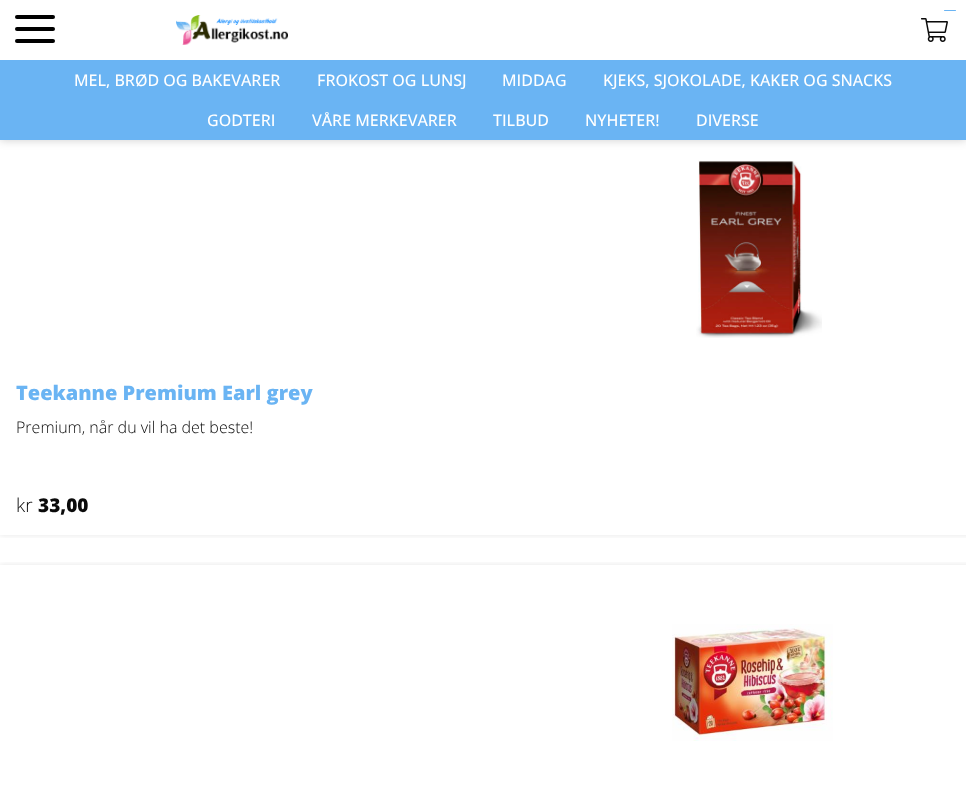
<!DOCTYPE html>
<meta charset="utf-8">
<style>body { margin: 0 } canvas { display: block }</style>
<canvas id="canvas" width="966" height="797"></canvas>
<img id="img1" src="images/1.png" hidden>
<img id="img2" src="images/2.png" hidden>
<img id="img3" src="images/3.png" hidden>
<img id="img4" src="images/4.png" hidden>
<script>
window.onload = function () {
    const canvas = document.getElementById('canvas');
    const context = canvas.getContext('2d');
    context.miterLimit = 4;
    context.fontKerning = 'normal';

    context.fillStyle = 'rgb(255, 255, 255)';
    context.fillRect(0, 0, 966, 797);
    context.fillStyle = 'rgba(0, 0, 0, 0.2)';
    context.filter = 'blur(5px)';
    context.beginPath();
    context.rect(0, 0, 966, 140);
    context.fill();
    context.filter = 'none';
    context.fillStyle = 'rgb(255, 255, 255)';
    context.fillRect(0, 0, 966, 60);
    context.fillStyle = 'rgb(0, 0, 0)';
    context.beginPath();
    context.roundRect(15, 15, 40, 4, 2);
    context.fill();
    context.beginPath();
    context.roundRect(15, 27, 40, 4, 2);
    context.fill();
    context.beginPath();
    context.roundRect(15, 39, 40, 4, 2);
    context.fill();
    context.drawImage(document.getElementById('img1'), 176, 15, 112, 30);
    context.fillStyle = 'rgb(106, 180, 243)';
    context.beginPath();
    context.roundRect(944, 10, 12, 1, 0.5);
    context.fill();
    context.drawImage(document.getElementById('img2'), 921, 18, 27, 24);
    context.save();
    context.beginPath();
    context.rect(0, 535, 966, 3);
    context.clip();
    context.fillStyle = 'rgba(0, 0, 0, 0.1)';
    context.filter = 'blur(3px)';
    context.beginPath();
    context.rect(0, 131, 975, 404);
    context.fill();
    context.filter = 'none';
    context.restore();
    context.fillRect(0, 60, 966, 80);
    context.drawImage(document.getElementById('img3'), 696, 160, 126, 178);
    context.save();
    context.beginPath();
    context.rect(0, 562, 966, 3);
    context.clip();
    context.fillStyle = 'rgba(0, 0, 0, 0.1)';
    context.filter = 'blur(3px)';
    context.beginPath();
    context.rect(0, 565, 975, 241);
    context.fill();
    context.filter = 'none';
    context.restore();
    context.drawImage(document.getElementById('img4'), 672, 624, 161, 117);
    context.font = '500 16px Open Sans';
    context.fillStyle = 'rgb(255, 255, 255)';
    context.fillText('MEL, BRØD OG BAKEVARER', 74, 86);
    context.fillText('FROKOST OG LUNSJ', 317, 86);
    context.fillText('MIDDAG', 502, 86);
    context.fillText('KJEKS, SJOKOLADE, KAKER OG SNACKS', 603, 86);
    context.fillText('GODTERI', 207, 126);
    context.fillText('VÅRE MERKEVARER', 312, 126);
    context.fillText('TILBUD', 493, 126);
    context.fillText('NYHETER!', 585, 126);
    context.fillText('DIVERSE', 696, 126);
    context.font = '800 20px Open Sans';
    context.fillStyle = 'rgb(106, 180, 243)';
    context.fillText('Teekanne Premium Earl grey', 16, 400);
    context.font = '300 16px Open Sans';
    context.fillStyle = 'rgb(10, 10, 10)';
    context.fillText('Premium, når du vil ha det beste!', 16, 433);
    context.font = '300 19px Open Sans';
    context.fillText('kr', 16, 512);
    context.font = '800 19px Open Sans';
    context.fillText('33,00', 38, 512);
};
</script>
